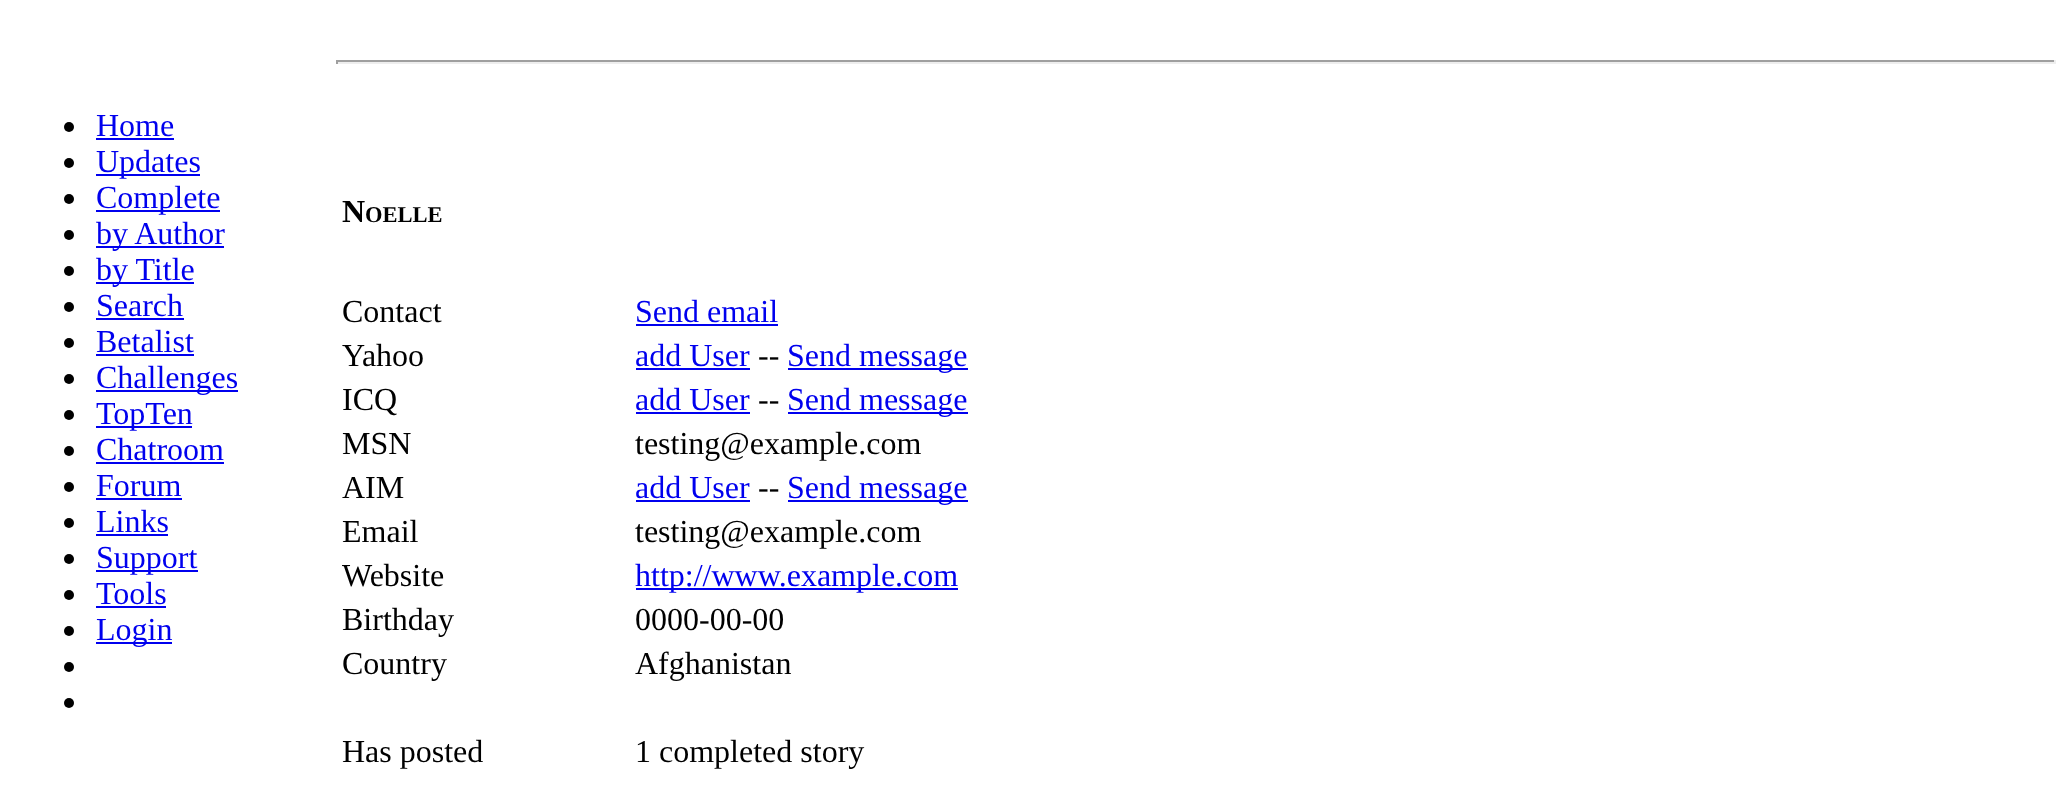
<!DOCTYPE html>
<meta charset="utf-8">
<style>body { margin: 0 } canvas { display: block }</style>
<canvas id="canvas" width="2071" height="799"></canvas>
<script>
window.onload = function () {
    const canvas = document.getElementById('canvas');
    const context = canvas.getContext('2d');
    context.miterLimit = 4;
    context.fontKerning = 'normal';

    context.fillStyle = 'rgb(255, 255, 255)';
    context.fillRect(0, 0, 2071, 799);
    context.fillStyle = 'rgb(0, 0, 0)';
    context.beginPath();
    context.arc(69, 127, 5, 0, 2 * Math.PI);
    context.fill();
    context.fillStyle = 'rgb(0, 0, 238)';
    context.fillRect(96, 138, 78, 2);
    context.fillStyle = 'rgb(0, 0, 0)';
    context.beginPath();
    context.arc(69, 163, 5, 0, 2 * Math.PI);
    context.fill();
    context.fillStyle = 'rgb(0, 0, 238)';
    context.fillRect(96, 174, 104, 2);
    context.fillStyle = 'rgb(0, 0, 0)';
    context.beginPath();
    context.arc(69, 199, 5, 0, 2 * Math.PI);
    context.fill();
    context.fillStyle = 'rgb(0, 0, 238)';
    context.fillRect(96, 210, 124, 2);
    context.fillStyle = 'rgb(0, 0, 0)';
    context.beginPath();
    context.arc(69, 235, 5, 0, 2 * Math.PI);
    context.fill();
    context.fillStyle = 'rgb(0, 0, 238)';
    context.fillRect(96, 246, 128, 2);
    context.fillStyle = 'rgb(0, 0, 0)';
    context.beginPath();
    context.arc(69, 271, 5, 0, 2 * Math.PI);
    context.fill();
    context.fillStyle = 'rgb(0, 0, 238)';
    context.fillRect(96, 282, 98, 2);
    context.fillStyle = 'rgb(0, 0, 0)';
    context.beginPath();
    context.arc(69, 307, 5, 0, 2 * Math.PI);
    context.fill();
    context.fillStyle = 'rgb(0, 0, 238)';
    context.fillRect(96, 318, 88, 2);
    context.fillStyle = 'rgb(0, 0, 0)';
    context.beginPath();
    context.arc(69, 343, 5, 0, 2 * Math.PI);
    context.fill();
    context.fillStyle = 'rgb(0, 0, 238)';
    context.fillRect(96, 354, 98, 2);
    context.fillStyle = 'rgb(0, 0, 0)';
    context.beginPath();
    context.arc(69, 379, 5, 0, 2 * Math.PI);
    context.fill();
    context.fillStyle = 'rgb(0, 0, 238)';
    context.fillRect(96, 390, 142, 2);
    context.fillStyle = 'rgb(0, 0, 0)';
    context.beginPath();
    context.arc(69, 415, 5, 0, 2 * Math.PI);
    context.fill();
    context.fillStyle = 'rgb(0, 0, 238)';
    context.fillRect(96, 426, 96, 2);
    context.fillStyle = 'rgb(0, 0, 0)';
    context.beginPath();
    context.arc(69, 451, 5, 0, 2 * Math.PI);
    context.fill();
    context.fillStyle = 'rgb(0, 0, 238)';
    context.fillRect(96, 462, 128, 2);
    context.fillStyle = 'rgb(0, 0, 0)';
    context.beginPath();
    context.arc(69, 487, 5, 0, 2 * Math.PI);
    context.fill();
    context.fillStyle = 'rgb(0, 0, 238)';
    context.fillRect(96, 498, 86, 2);
    context.fillStyle = 'rgb(0, 0, 0)';
    context.beginPath();
    context.arc(69, 523, 5, 0, 2 * Math.PI);
    context.fill();
    context.fillStyle = 'rgb(0, 0, 238)';
    context.fillRect(96, 534, 72, 2);
    context.fillStyle = 'rgb(0, 0, 0)';
    context.beginPath();
    context.arc(69, 559, 5, 0, 2 * Math.PI);
    context.fill();
    context.fillStyle = 'rgb(0, 0, 238)';
    context.fillRect(96, 570, 102, 2);
    context.fillStyle = 'rgb(0, 0, 0)';
    context.beginPath();
    context.arc(69, 595, 5, 0, 2 * Math.PI);
    context.fill();
    context.fillStyle = 'rgb(0, 0, 238)';
    context.fillRect(96, 606, 70, 2);
    context.fillStyle = 'rgb(0, 0, 0)';
    context.beginPath();
    context.arc(69, 631, 5, 0, 2 * Math.PI);
    context.fill();
    context.fillStyle = 'rgb(0, 0, 238)';
    context.fillRect(96, 642, 76, 2);
    context.fillStyle = 'rgb(0, 0, 0)';
    context.beginPath();
    context.arc(69, 667, 5, 0, 2 * Math.PI);
    context.fill();
    context.beginPath();
    context.arc(69, 703, 5, 0, 2 * Math.PI);
    context.fill();
    context.fillStyle = 'rgb(159, 159, 159)';
    context.fillRect(336, 60, 1720, 2);
    context.fillStyle = 'rgb(238, 238, 238)';
    context.fillRect(2054, 60, 2, 4);
    context.fillRect(336, 62, 1720, 2);
    context.fillStyle = 'rgb(159, 159, 159)';
    context.fillRect(336, 60, 2, 4);
    context.fillStyle = 'rgb(0, 0, 238)';
    context.fillRect(636, 324, 142, 2);
    context.fillRect(636, 368, 114, 2);
    context.fillRect(788, 368, 180, 2);
    context.fillRect(636, 412, 114, 2);
    context.fillRect(788, 412, 180, 2);
    context.fillRect(636, 500, 114, 2);
    context.fillRect(788, 500, 180, 2);
    context.fillRect(636, 588, 322, 2);
    context.font = '32px Liberation Serif';
    context.fillText('Home', 96, 136);
    context.fillText('Updates', 96, 172);
    context.fillText('Complete', 96, 208);
    context.fillText('by Author', 96, 244);
    context.fillText('by Title', 96, 280);
    context.fillText('Search', 96, 316);
    context.fillText('Betalist', 96, 352);
    context.fillText('Challenges', 96, 388);
    context.fillText('TopTen', 96, 424);
    context.fillText('Chatroom', 96, 460);
    context.fillText('Forum', 96, 496);
    context.fillText('Links', 96, 532);
    context.fillText('Support', 96, 568);
    context.fillText('Tools', 96, 604);
    context.fillText('Login', 96, 640);
    context.font = 'bold 32px Liberation Serif';
    context.fillStyle = 'rgb(0, 0, 0)';
    context.fillText('N', 342, 222);
    context.font = 'bold 22.5px Liberation Serif';
    context.fillText('OELLE', 365, 222);
    context.font = '32px Liberation Serif';
    context.fillText('Contact', 342, 322);
    context.fillStyle = 'rgb(0, 0, 238)';
    context.fillText('Send email', 635, 322);
    context.fillStyle = 'rgb(0, 0, 0)';
    context.fillText('Yahoo', 342, 366);
    context.fillStyle = 'rgb(0, 0, 238)';
    context.fillText('add User', 635, 366);
    context.fillStyle = 'rgb(0, 0, 0)';
    context.fillText('--', 758, 366);
    context.fillStyle = 'rgb(0, 0, 238)';
    context.fillText('Send message', 787, 366);
    context.fillStyle = 'rgb(0, 0, 0)';
    context.fillText('ICQ', 342, 410);
    context.fillStyle = 'rgb(0, 0, 238)';
    context.fillText('add User', 635, 410);
    context.fillStyle = 'rgb(0, 0, 0)';
    context.fillText('--', 758, 410);
    context.fillStyle = 'rgb(0, 0, 238)';
    context.fillText('Send message', 787, 410);
    context.fillStyle = 'rgb(0, 0, 0)';
    context.fillText('MSN', 342, 454);
    context.fillText('testing@example.com', 635, 454);
    context.fillText('AIM', 342, 498);
    context.fillStyle = 'rgb(0, 0, 238)';
    context.fillText('add User', 635, 498);
    context.fillStyle = 'rgb(0, 0, 0)';
    context.fillText('--', 758, 498);
    context.fillStyle = 'rgb(0, 0, 238)';
    context.fillText('Send message', 787, 498);
    context.fillStyle = 'rgb(0, 0, 0)';
    context.fillText('Email', 342, 542);
    context.fillText('testing@example.com', 635, 542);
    context.fillText('Website', 342, 586);
    context.fillStyle = 'rgb(0, 0, 238)';
    context.fillText('http://www.example.com', 635, 586);
    context.fillStyle = 'rgb(0, 0, 0)';
    context.fillText('Birthday', 342, 630);
    context.fillText('0000-00-00', 635, 630);
    context.fillText('Country', 342, 674);
    context.fillText('Afghanistan', 635, 674);
    context.fillText('Has posted', 342, 762);
    context.fillText('1 completed story', 635, 762);
};
</script>
